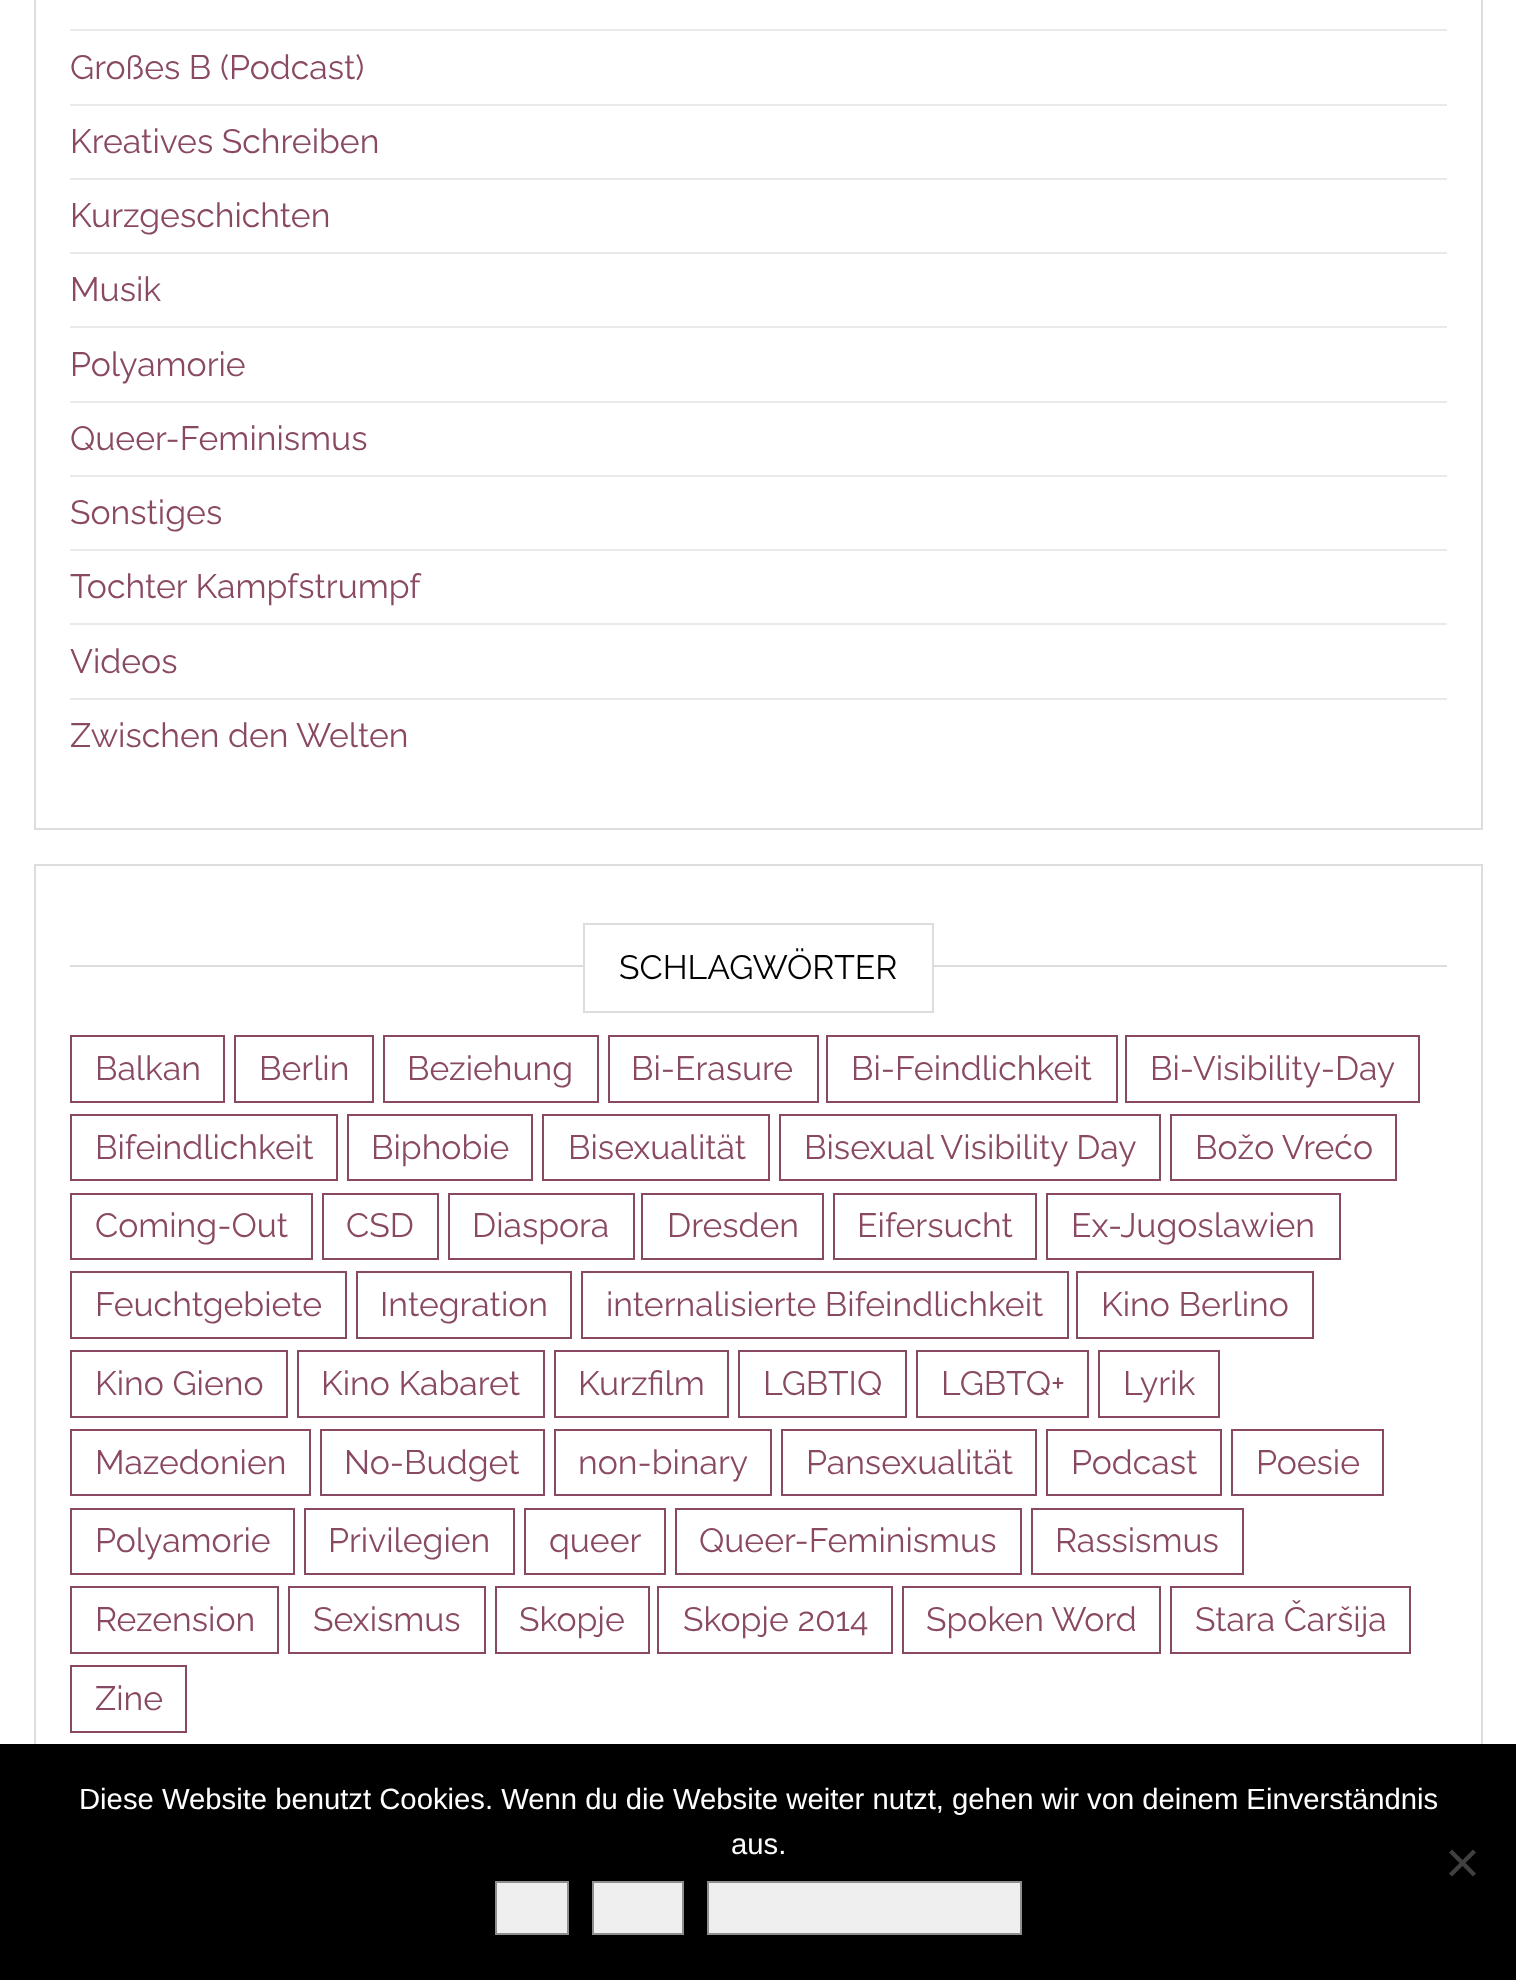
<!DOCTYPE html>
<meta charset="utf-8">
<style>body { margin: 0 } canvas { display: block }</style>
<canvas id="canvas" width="1516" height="1980"></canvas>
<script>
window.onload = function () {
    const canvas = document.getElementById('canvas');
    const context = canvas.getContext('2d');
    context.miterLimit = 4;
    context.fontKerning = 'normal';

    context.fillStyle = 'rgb(255, 255, 255)';
    context.fillRect(0, 0, 1516, 1980);
    context.strokeStyle = 'rgb(221, 221, 221)';
    context.lineWidth = 2;
    context.strokeRect(35, -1, 1447, 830);
    context.fillStyle = 'rgb(233, 233, 233)';
    context.fillRect(70, 29, 1377, 2);
    context.fillRect(70, 104, 1377, 2);
    context.fillRect(70, 178, 1377, 2);
    context.fillRect(70, 252, 1377, 2);
    context.fillRect(70, 326, 1377, 2);
    context.fillRect(70, 401, 1377, 2);
    context.fillRect(70, 475, 1377, 2);
    context.fillRect(70, 549, 1377, 2);
    context.fillRect(70, 623, 1377, 2);
    context.fillRect(70, 698, 1377, 2);
    context.strokeRect(35, 865, 1447, 914);
    context.fillStyle = 'rgb(221, 221, 221)';
    context.fillRect(70, 965, 1377, 2);
    context.fillStyle = 'rgb(255, 255, 255)';
    context.fillRect(585, 965, 347, 2);
    context.strokeRect(584, 924, 349, 88);
    context.strokeStyle = 'rgb(138, 73, 99)';
    context.strokeRect(71, 1036, 153, 66);
    context.strokeRect(235, 1036, 138, 66);
    context.strokeRect(384, 1036, 214, 66);
    context.strokeRect(609, 1036, 209, 66);
    context.strokeRect(827, 1036, 290, 66);
    context.strokeRect(1126, 1036, 293, 66);
    context.strokeRect(71, 1115, 266, 65);
    context.strokeRect(348, 1115, 184, 65);
    context.strokeRect(543, 1115, 226, 65);
    context.strokeRect(780, 1115, 380, 65);
    context.strokeRect(1171, 1115, 225, 65);
    context.strokeRect(71, 1194, 241, 65);
    context.strokeRect(323, 1194, 115, 65);
    context.strokeRect(449, 1194, 185, 65);
    context.strokeRect(642, 1194, 181, 65);
    context.strokeRect(834, 1194, 202, 65);
    context.strokeRect(1047, 1194, 293, 65);
    context.strokeRect(71, 1272, 275, 66);
    context.strokeRect(357, 1272, 214, 66);
    context.strokeRect(582, 1272, 486, 66);
    context.strokeRect(1077, 1272, 236, 66);
    context.strokeRect(71, 1351, 216, 66);
    context.strokeRect(298, 1351, 246, 66);
    context.strokeRect(555, 1351, 173, 66);
    context.strokeRect(739, 1351, 167, 66);
    context.strokeRect(917, 1351, 171, 66);
    context.strokeRect(1099, 1351, 120, 66);
    context.strokeRect(71, 1430, 239, 65);
    context.strokeRect(321, 1430, 223, 65);
    context.strokeRect(555, 1430, 216, 65);
    context.strokeRect(782, 1430, 254, 65);
    context.strokeRect(1047, 1430, 174, 65);
    context.strokeRect(1232, 1430, 151, 65);
    context.strokeRect(71, 1509, 223, 65);
    context.strokeRect(305, 1509, 209, 65);
    context.strokeRect(525, 1509, 140, 65);
    context.strokeRect(676, 1509, 345, 65);
    context.strokeRect(1032, 1509, 211, 65);
    context.strokeRect(71, 1587, 207, 66);
    context.strokeRect(289, 1587, 196, 66);
    context.strokeRect(496, 1587, 153, 66);
    context.strokeRect(658, 1587, 234, 66);
    context.strokeRect(903, 1587, 257, 66);
    context.strokeRect(1171, 1587, 239, 66);
    context.strokeRect(71, 1666, 115, 66);
    context.fillStyle = 'rgb(0, 0, 0)';
    context.fillRect(0, 1744, 1516, 236);
    context.fillStyle = 'rgb(64, 64, 64)';
    context.beginPath();
    context.moveTo(1473, 1849.5);
    context.lineTo(1476, 1852.5);
    context.lineTo(1452, 1876.5);
    context.lineTo(1449, 1873.5);
    context.closePath();
    context.fill();
    context.beginPath();
    context.moveTo(1449, 1852.5);
    context.lineTo(1452, 1849.5);
    context.lineTo(1476, 1873.5);
    context.lineTo(1473, 1876.5);
    context.closePath();
    context.fill();
    context.fillStyle = 'rgb(239, 239, 239)';
    context.beginPath();
    context.rect(496, 1882, 72, 52);
    context.fill();
    context.strokeStyle = 'rgb(142, 142, 142)';
    context.stroke();
    context.beginPath();
    context.rect(593, 1882, 90, 52);
    context.fill();
    context.stroke();
    context.beginPath();
    context.rect(708, 1882, 313, 52);
    context.fill();
    context.stroke();
    context.font = '33.75px Raleway';
    context.fillStyle = 'rgb(138, 73, 99)';
    context.fillText('Großes B (Podcast)', 70, 79);
    context.fillText('Kreatives Schreiben', 70, 153);
    context.fillText('Kurzgeschichten', 70, 227);
    context.fillText('Musik', 70, 301);
    context.fillText('Polyamorie', 70, 376);
    context.fillText('Queer-Feminismus', 70, 450);
    context.fillText('Sonstiges', 70, 524);
    context.fillText('Tochter Kampfstrumpf', 70, 598);
    context.fillText('Videos', 70, 673);
    context.fillText('Zwischen den Welten', 70, 747);
    context.fillStyle = 'rgb(0, 0, 0)';
    context.fillText('SCHLAGWÖRTER', 619, 979);
    context.fillStyle = 'rgb(138, 73, 99)';
    context.fillText('Balkan', 95, 1080);
    context.fillText('Berlin', 259, 1080);
    context.fillText('Beziehung', 407, 1080);
    context.fillText('Bi-Erasure', 631, 1080);
    context.fillText('Bi-Feindlichkeit', 851, 1080);
    context.fillText('Bi-Visibility-Day', 1150, 1080);
    context.fillText('Bifeindlichkeit', 95, 1159);
    context.fillText('Biphobie', 371, 1159);
    context.fillText('Bisexualität', 568, 1159);
    context.fillText('Bisexual Visibility Day', 804, 1159);
    context.fillText('Božo Vrećo', 1195, 1159);
    context.fillText('Coming-Out', 95, 1237);
    context.fillText('CSD', 346, 1237);
    context.fillText('Diaspora', 472, 1237);
    context.fillText('Dresden', 667, 1237);
    context.fillText('Eifersucht', 857, 1237);
    context.fillText('Ex-Jugoslawien', 1071, 1237);
    context.fillText('Feuchtgebiete', 95, 1316);
    context.fillText('Integration', 380, 1316);
    context.fillText('internalisierte Bifeindlichkeit', 606, 1316);
    context.fillText('Kino Berlino', 1101, 1316);
    context.fillText('Kino Gieno', 95, 1395);
    context.fillText('Kino Kabaret', 321, 1395);
    context.fillText('Kurzfilm', 578, 1395);
    context.fillText('LGBTIQ', 763, 1395);
    context.fillText('LGBTQ+', 941, 1395);
    context.fillText('Lyrik', 1123, 1395);
    context.fillText('Mazedonien', 95, 1474);
    context.fillText('No-Budget', 344, 1474);
    context.fillText('non-binary', 578, 1474);
    context.fillText('Pansexualität', 806, 1474);
    context.fillText('Podcast', 1071, 1474);
    context.fillText('Poesie', 1256, 1474);
    context.fillText('Polyamorie', 95, 1552);
    context.fillText('Privilegien', 328, 1552);
    context.fillText('queer', 549, 1552);
    context.fillText('Queer-Feminismus', 699, 1552);
    context.fillText('Rassismus', 1055, 1552);
    context.fillText('Rezension', 95, 1631);
    context.fillText('Sexismus', 313, 1631);
    context.fillText('Skopje', 519, 1631);
    context.fillText('Skopje 2014', 683, 1631);
    context.fillText('Spoken Word', 926, 1631);
    context.fillText('Stara Čaršija', 1195, 1631);
    context.fillText('Zine', 95, 1710);
    context.font = '29.25px Liberation Sans';
    context.fillStyle = 'rgb(255, 255, 255)';
    context.fillText('Diese Website benutzt Cookies. Wenn du die Website weiter nutzt, gehen wir von deinem Einverständnis', 79, 1809);
    context.fillText('aus.', 731, 1854);
};
</script>
